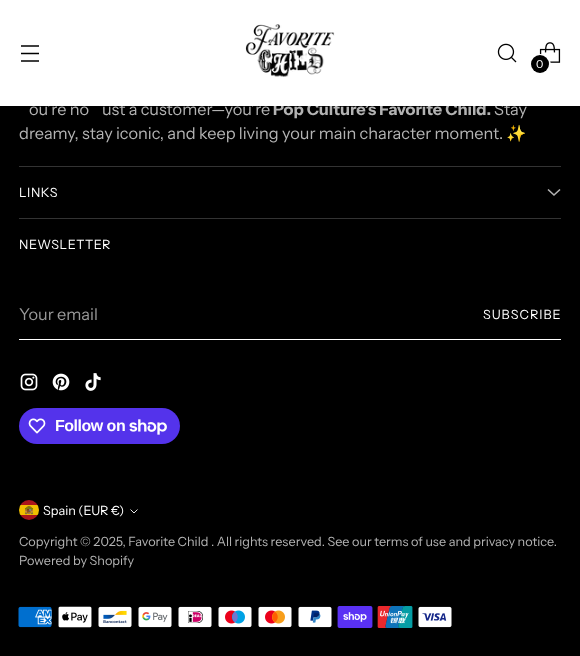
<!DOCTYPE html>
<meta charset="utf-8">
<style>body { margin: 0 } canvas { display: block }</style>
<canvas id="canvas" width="580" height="656"></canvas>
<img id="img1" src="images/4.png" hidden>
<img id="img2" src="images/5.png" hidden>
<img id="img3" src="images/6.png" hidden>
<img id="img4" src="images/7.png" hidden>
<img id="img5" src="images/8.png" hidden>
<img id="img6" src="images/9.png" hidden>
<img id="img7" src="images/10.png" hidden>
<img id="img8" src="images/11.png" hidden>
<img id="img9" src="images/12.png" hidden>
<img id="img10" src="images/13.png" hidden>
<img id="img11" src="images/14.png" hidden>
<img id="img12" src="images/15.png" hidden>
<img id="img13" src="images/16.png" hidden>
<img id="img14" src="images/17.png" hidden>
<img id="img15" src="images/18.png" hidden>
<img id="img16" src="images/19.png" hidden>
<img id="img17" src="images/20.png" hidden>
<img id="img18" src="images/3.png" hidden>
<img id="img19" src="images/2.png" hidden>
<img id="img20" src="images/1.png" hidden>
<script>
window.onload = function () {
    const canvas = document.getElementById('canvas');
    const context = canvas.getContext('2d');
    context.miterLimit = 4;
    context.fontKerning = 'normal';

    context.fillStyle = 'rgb(0, 0, 0)';
    context.fillRect(0, 0, 580, 656);
    context.fillStyle = 'rgb(51, 51, 51)';
    context.fillRect(19, 166, 542, 1);
    context.fillRect(19, 218, 542, 1);
    context.beginPath();
    context.moveTo(548, 189.5);
    context.lineTo(554, 195);
    context.lineTo(560, 189.5);
    context.strokeStyle = 'rgb(179, 179, 179)';
    context.lineWidth = 1.6;
    context.stroke();
    context.fillStyle = 'rgb(255, 255, 255)';
    context.fillRect(19, 339, 542, 1);
    context.drawImage(document.getElementById('img1'), 20, 373, 18, 18);
    context.drawImage(document.getElementById('img2'), 52, 373, 18, 18);
    context.drawImage(document.getElementById('img3'), 85, 373, 16, 18);
    context.fillStyle = 'rgb(84, 51, 235)';
    context.beginPath();
    context.roundRect(19, 408, 161, 36, 18);
    context.fill();
    context.drawImage(document.getElementById('img4'), 28, 418, 18, 16);
    context.drawImage(document.getElementById('img5'), 129, 419, 38, 16);
    context.drawImage(document.getElementById('img6'), 19, 500, 20, 20);
    context.beginPath();
    context.moveTo(130.5, 509.5);
    context.lineTo(134, 513);
    context.lineTo(137.5, 509.5);
    context.strokeStyle = 'rgb(255, 255, 255)';
    context.lineWidth = 0.9;
    context.stroke();
    context.drawImage(document.getElementById('img7'), 18, 606, 34, 22);
    context.drawImage(document.getElementById('img8'), 58, 606, 34, 22);
    context.drawImage(document.getElementById('img9'), 98, 606, 34, 22);
    context.drawImage(document.getElementById('img10'), 138, 606, 34, 22);
    context.drawImage(document.getElementById('img11'), 178, 606, 34, 22);
    context.drawImage(document.getElementById('img12'), 218, 606, 34, 22);
    context.drawImage(document.getElementById('img13'), 258, 606, 34, 22);
    context.drawImage(document.getElementById('img14'), 298, 606, 34, 22);
    context.drawImage(document.getElementById('img15'), 337, 606, 36, 22);
    context.drawImage(document.getElementById('img16'), 377, 606, 36, 22);
    context.drawImage(document.getElementById('img17'), 418, 606, 34, 22);
    context.font = '16.35px Instrument Sans';
    context.fillStyle = 'rgb(179, 179, 179)';
    context.fillText('ou’re no', 29, 115);
    context.fillText('ust a customer—you’re', 102, 115);
    context.font = 'bold 16.35px Instrument Sans';
    context.fillText('Pop Culture’s Favorite Child.', 273, 115);
    context.font = '16.35px Instrument Sans';
    context.fillText('Stay', 494, 115);
    context.fillStyle = 'rgb(255, 255, 255)';
    context.fillRect(0, 0, 580, 106);
    context.drawImage(document.getElementById('img18'), 539, 42, 22, 21);
    context.beginPath();
    context.arc(540.5, 64.5, 9.5, 0, 2 * Math.PI);
    context.lineWidth = 2;
    context.stroke();
    context.fillStyle = 'rgb(0, 0, 0)';
    context.beginPath();
    context.arc(540, 64, 9, 0, 2 * Math.PI);
    context.fill();
    context.font = '11px Instrument Sans';
    context.fillStyle = 'rgb(255, 255, 255)';
    context.fillText('0', 536, 68);
    context.drawImage(document.getElementById('img19'), 497, 43, 20, 20);
    context.beginPath();
    context.moveTo(21, 53.5);
    context.lineTo(39, 53.5);
    context.moveTo(21, 46);
    context.lineTo(39, 46);
    context.moveTo(21, 61);
    context.lineTo(39, 61);
    context.strokeStyle = 'rgb(0, 0, 0)';
    context.lineWidth = 1.3;
    context.stroke();
    context.drawImage(document.getElementById('img20'), 245, 24, 90, 53);
    context.font = '16.35px Instrument Sans';
    context.fillStyle = 'rgb(179, 179, 179)';
    context.fillText('dreamy, stay iconic, and keep living your main character moment.', 19, 139);
    context.font = '16.35px Noto Color Emoji';
    context.fillText('✨', 506, 139);
    context.letterSpacing = '0.6px';
    context.font = '12.7px Instrument Sans';
    context.fillStyle = 'rgb(255, 255, 255)';
    context.fillText('LINKS', 19, 197);
    context.fillText('NEWSLETTER', 19, 249);
    context.letterSpacing = '0px';
    context.font = '16.35px Instrument Sans';
    context.fillStyle = 'rgb(153, 153, 153)';
    context.fillText('Your email', 19, 320);
    context.letterSpacing = '1px';
    context.font = '12.7px Instrument Sans';
    context.fillStyle = 'rgb(255, 255, 255)';
    context.fillText('SUBSCRIBE', 483, 319);
    context.letterSpacing = '-0.5px';
    context.font = 'bold 16px Liberation Sans';
    context.fillText('Follow on', 55, 431);
    context.letterSpacing = '0px';
    context.font = '12.7px Instrument Sans';
    context.fillText('Spain (EUR €)', 43, 515);
    context.fillStyle = 'rgb(179, 179, 179)';
    context.fillText('Copyright © 2025, Favorite Child . All rights reserved. See our terms of use and privacy notice.', 19, 546);
    context.fillText('Powered by Shopify', 19, 565);
};
</script>
